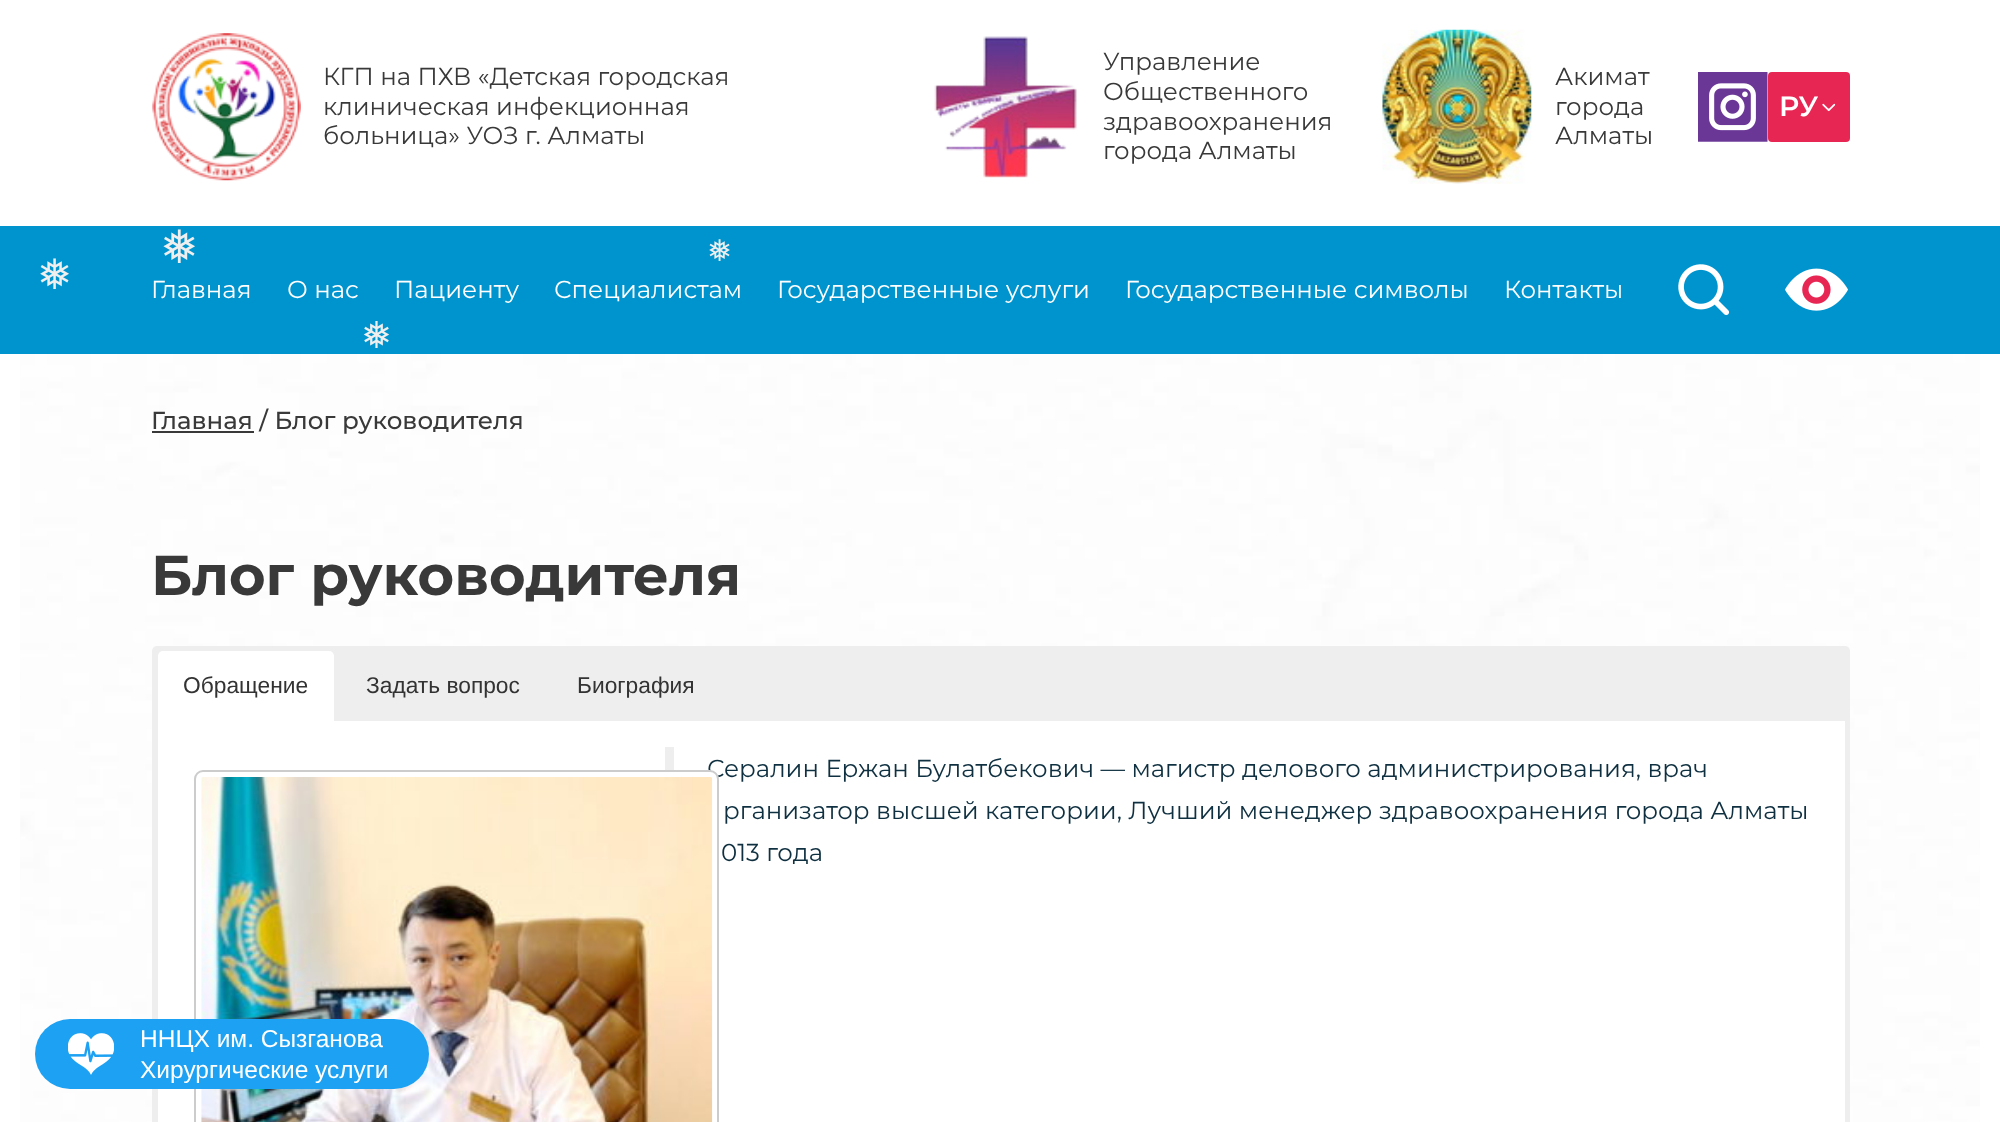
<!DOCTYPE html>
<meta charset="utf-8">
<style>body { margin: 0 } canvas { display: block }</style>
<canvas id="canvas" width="2000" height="1122"></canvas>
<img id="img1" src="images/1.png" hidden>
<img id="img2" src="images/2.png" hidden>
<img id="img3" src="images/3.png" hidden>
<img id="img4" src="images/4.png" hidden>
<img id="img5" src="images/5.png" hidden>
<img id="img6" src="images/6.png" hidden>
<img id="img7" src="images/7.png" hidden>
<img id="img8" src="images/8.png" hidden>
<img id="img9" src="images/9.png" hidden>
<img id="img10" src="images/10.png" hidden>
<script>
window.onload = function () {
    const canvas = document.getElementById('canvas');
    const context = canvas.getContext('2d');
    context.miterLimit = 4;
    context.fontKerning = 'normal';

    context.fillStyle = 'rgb(255, 255, 255)';
    context.fillRect(0, 0, 2000, 1122);
    context.drawImage(document.getElementById('img1'), 20, 354, 1960, 768);
    context.drawImage(document.getElementById('img2'), 152, 33, 149, 148);
    context.drawImage(document.getElementById('img3'), 934, 36, 143, 142);
    context.drawImage(document.getElementById('img4'), 1382, 29, 150, 155);
    context.drawImage(document.getElementById('img5'), 1698, 72, 70, 70);
    context.fillStyle = 'rgb(232, 38, 84)';
    context.beginPath();
    context.roundRect(1768, 72, 82, 70, 4);
    context.fill();
    context.drawImage(document.getElementById('img6'), 1822, 103, 14, 9);
    context.fillStyle = 'rgb(0, 148, 206)';
    context.fillRect(0, 226, 2000, 128);
    context.drawImage(document.getElementById('img7'), 1678, 264, 52, 52);
    context.drawImage(document.getElementById('img8'), 1785, 268, 63, 43);
    context.fillStyle = 'rgb(57, 57, 57)';
    context.fillRect(152, 431, 102, 2);
    context.fillStyle = 'rgb(238, 238, 238)';
    context.beginPath();
    context.roundRect(152, 646, 1698, 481, 5);
    context.fill();
    context.fillStyle = 'rgb(255, 255, 255)';
    context.beginPath();
    context.roundRect(158, 651, 176, 70, [5, 5, 0, 0]);
    context.fill();
    context.fillRect(158, 721, 1687, 401);
    context.fillStyle = 'rgb(238, 238, 238)';
    context.fillRect(665, 747, 9, 23);
    context.font = '24.5px Montserrat';
    context.fillStyle = 'rgb(57, 57, 57)';
    context.fillText('КГП на ПХВ «Детская городская', 323, 85);
    context.fillText('клиническая инфекционная', 323, 115);
    context.fillText('больница» УОЗ г. Алматы', 323, 144);
    context.fillText('Управление', 1103, 70);
    context.fillText('Общественного', 1103, 100);
    context.fillText('здравоохранения', 1103, 130);
    context.fillText('города Алматы', 1103, 159);
    context.fillText('Акимат', 1555, 85);
    context.fillText('города', 1555, 115);
    context.fillText('Алматы', 1555, 144);
    context.font = '600 28px Montserrat';
    context.fillStyle = 'rgb(255, 255, 255)';
    context.fillText('РУ', 1779, 116);
    context.font = '46px DejaVu Sans';
    context.fillStyle = 'rgb(239, 239, 239)';
    context.fillText('❅', 160, 263);
    context.font = '30px DejaVu Sans';
    context.fillText('❅', 707, 261);
    context.font = '42px DejaVu Sans';
    context.fillText('❅', 37, 289);
    context.font = '37px DejaVu Sans';
    context.fillText('❅', 361, 348);
    context.font = '24.5px Montserrat';
    context.fillStyle = 'rgb(255, 255, 255)';
    context.fillText('Главная', 151, 298);
    context.fillText('О нас', 287, 298);
    context.fillText('Пациенту', 394, 298);
    context.fillText('Специалистам', 554, 298);
    context.fillText('Государственные услуги', 777, 298);
    context.fillText('Государственные символы', 1125, 298);
    context.fillText('Контакты', 1504, 298);
    context.font = '500 24.5px Montserrat';
    context.fillStyle = 'rgb(57, 57, 57)';
    context.fillText('Главная / Блог руководителя', 151, 429);
    context.font = 'bold 56px Montserrat';
    context.fillText('Блог руководителя', 151, 595);
    context.font = '22.75px Liberation Sans';
    context.fillStyle = 'rgb(51, 51, 51)';
    context.fillText('Обращение', 183, 693);
    context.fillText('Задать вопрос', 366, 693);
    context.fillText('Биография', 577, 693);
    context.font = '24.5px Montserrat';
    context.fillStyle = 'rgb(15, 48, 64)';
    context.fillText('Сералин Ержан Булатбекович — магистр делового администрирования, врач', 707, 777);
    context.fillStyle = 'rgb(255, 255, 255)';
    context.beginPath();
    context.roundRect(195, 771, 523, 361, 8);
    context.fill();
    context.strokeStyle = 'rgb(204, 204, 204)';
    context.lineWidth = 2;
    context.stroke();
    context.drawImage(document.getElementById('img9'), 201, 777, 512, 345);
    context.fillStyle = 'rgb(15, 48, 64)';
    context.fillText('рганизатор высшей категории, Лучший менеджер здравоохранения города Алматы', 723, 819);
    context.fillText('013 года', 721, 861);
    context.fillStyle = 'rgb(29, 161, 242)';
    context.beginPath();
    context.roundRect(35, 1019, 394, 70, 35);
    context.fill();
    context.drawImage(document.getElementById('img10'), 68, 1033, 46, 42);
    context.font = '24.5px Liberation Sans';
    context.fillStyle = 'rgb(255, 255, 255)';
    context.fillText('ННЦХ им. Сызганова', 140, 1047);
    context.fillText('Хирургические услуги', 140, 1078);
};
</script>
